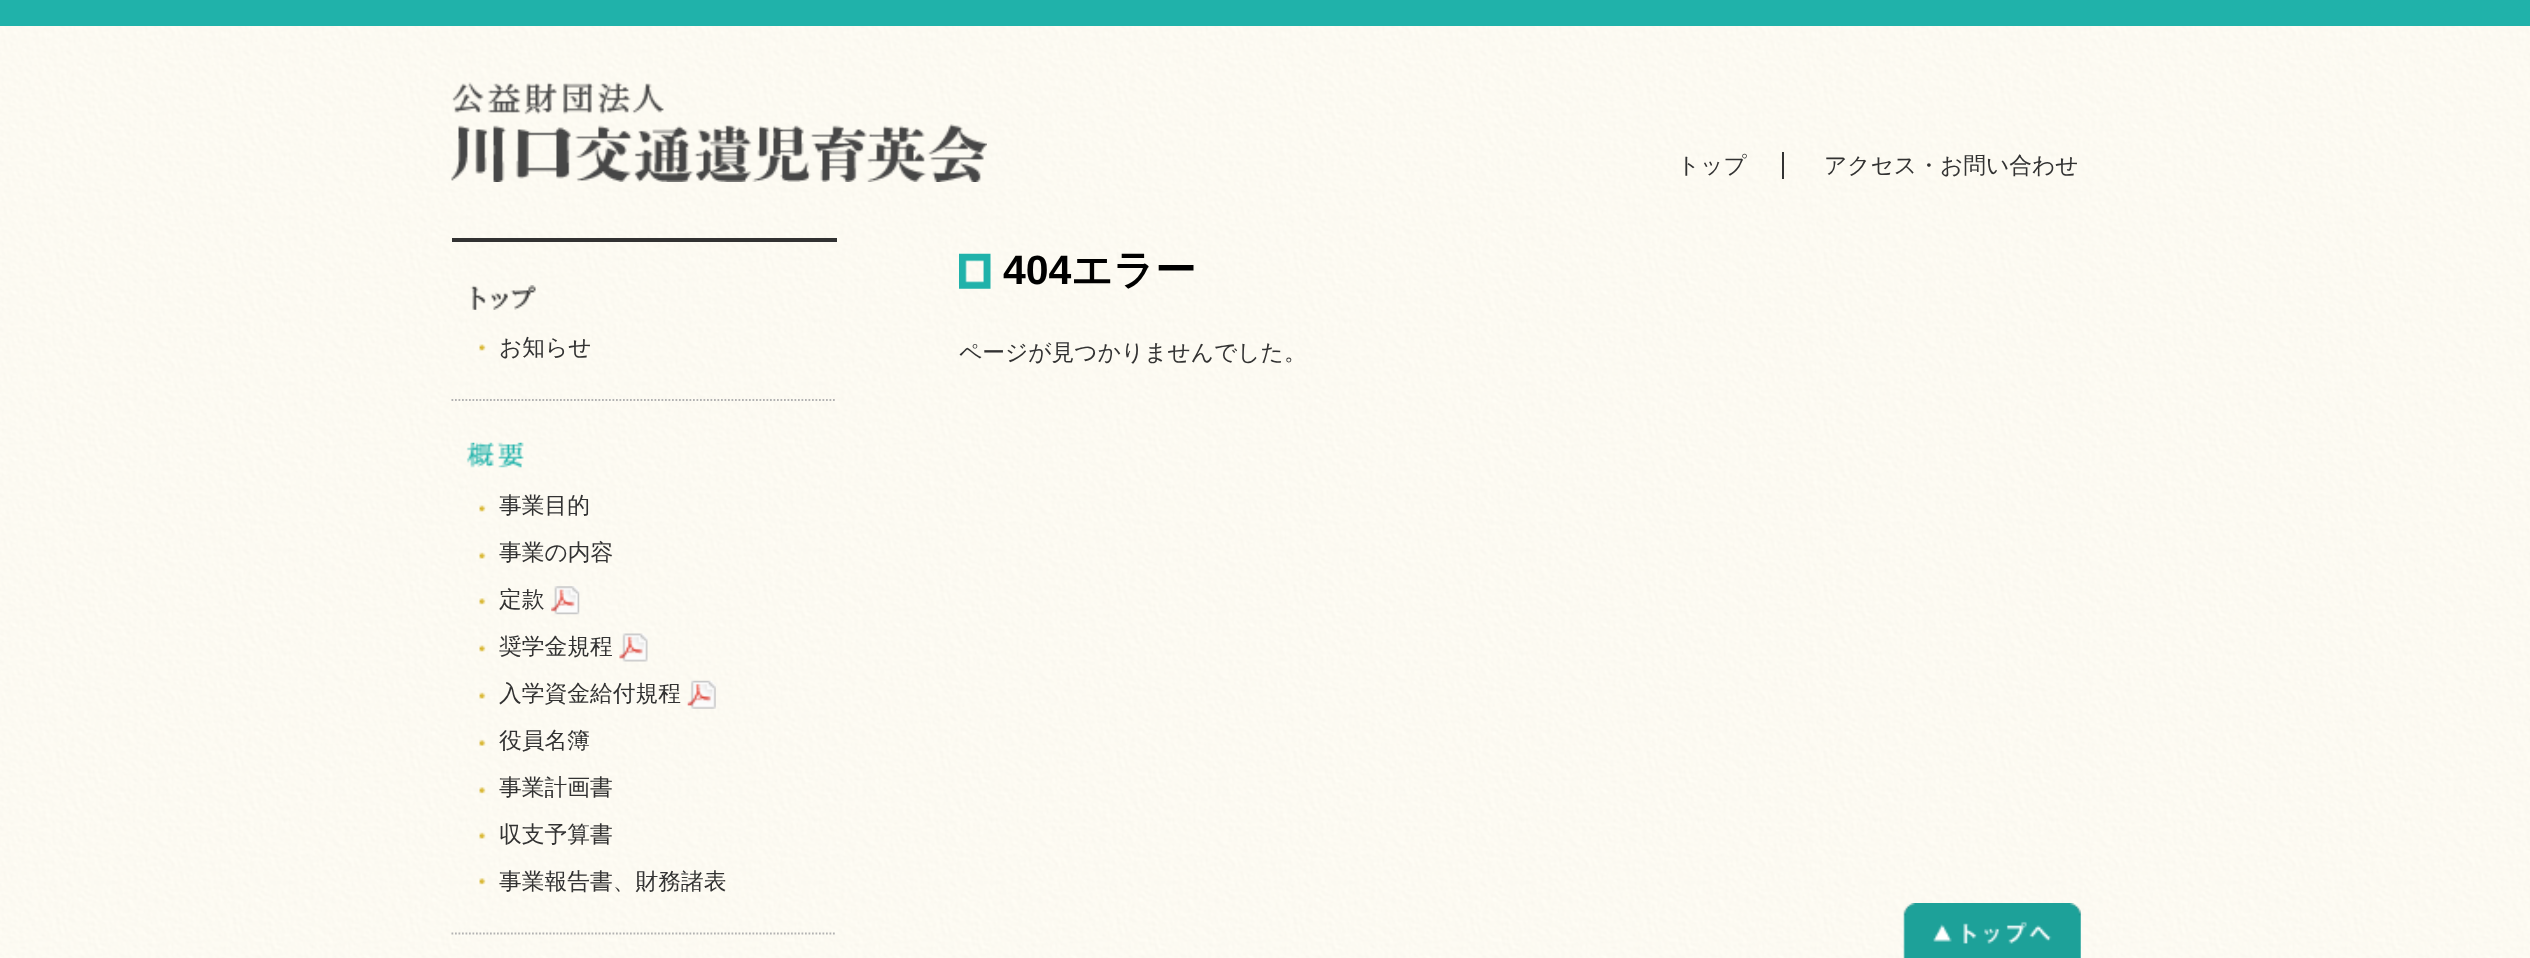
<!DOCTYPE html>
<meta charset="utf-8">
<style>body { margin: 0 } canvas { display: block }</style>
<canvas id="canvas" width="2530" height="958"></canvas>
<img id="img1" src="images/1.png" hidden>
<img id="img2" src="images/2.png" hidden>
<img id="img3" src="images/3.png" hidden>
<img id="img4" src="images/4.png" hidden>
<img id="img5" src="images/5.png" hidden>
<img id="img6" src="images/6.png" hidden>
<img id="img7" src="images/7.png" hidden>
<img id="img8" src="images/8.png" hidden>
<img id="img9" src="images/9.png" hidden>
<img id="img10" src="images/10.png" hidden>
<img id="img11" src="images/11.png" hidden>
<img id="img12" src="images/12.png" hidden>
<img id="img13" src="images/13.png" hidden>
<img id="img14" src="images/14.png" hidden>
<img id="img15" src="images/15.png" hidden>
<img id="img16" src="images/16.png" hidden>
<img id="img17" src="images/17.png" hidden>
<img id="img18" src="images/18.png" hidden>
<img id="img19" src="images/19.png" hidden>
<script>
window.onload = function () {
    const canvas = document.getElementById('canvas');
    const context = canvas.getContext('2d');
    context.miterLimit = 4;
    context.fontKerning = 'normal';

    context.fillStyle = 'rgb(255, 255, 255)';
    context.fillRect(0, 0, 2530, 958);
    context.drawImage(document.getElementById('img1'), 0, 26, 2530, 932);
    context.fillStyle = 'rgb(32, 178, 170)';
    context.fillRect(0, 0, 2530, 26);
    context.drawImage(document.getElementById('img2'), 451, 82, 536, 100);
    context.fillStyle = 'rgb(50, 50, 50)';
    context.fillRect(1782, 152, 2, 27);
    context.drawImage(document.getElementById('img3'), 959, 253, 32, 36);
    context.fillRect(452, 238, 385, 4);
    context.beginPath();
    context.moveTo(451.5, 400);
    context.lineTo(836.5, 400);
    context.strokeStyle = 'rgb(178, 178, 178)';
    context.lineWidth = 1.8;
    context.setLineDash([1.75, 1.75]);
    context.stroke();
    context.drawImage(document.getElementById('img4'), 470, 285, 66, 25);
    context.drawImage(document.getElementById('img5'), 479, 344, 7, 7);
    context.beginPath();
    context.moveTo(451.5, 933.5);
    context.lineTo(836.5, 933.5);
    context.stroke();
    context.drawImage(document.getElementById('img6'), 466, 442, 58, 26);
    context.drawImage(document.getElementById('img7'), 479, 505, 7, 7);
    context.drawImage(document.getElementById('img8'), 479, 552, 7, 7);
    context.drawImage(document.getElementById('img9'), 479, 598, 7, 7);
    context.drawImage(document.getElementById('img10'), 551, 586, 29, 29);
    context.drawImage(document.getElementById('img11'), 479, 645, 7, 7);
    context.drawImage(document.getElementById('img12'), 619, 633, 29, 29);
    context.drawImage(document.getElementById('img13'), 479, 692, 7, 7);
    context.drawImage(document.getElementById('img14'), 687, 680, 29, 29);
    context.drawImage(document.getElementById('img15'), 479, 739, 7, 7);
    context.drawImage(document.getElementById('img16'), 479, 787, 7, 7);
    context.drawImage(document.getElementById('img17'), 479, 832, 7, 7);
    context.drawImage(document.getElementById('img18'), 479, 878, 7, 7);
    context.drawImage(document.getElementById('img19'), 1903, 903, 178, 55);
    context.font = '500 22.75px WenQuanYi Zen Hei';
    context.fillText('トップ', 1677, 173);
    context.fillText('アクセス・お問い合わせ', 1824, 173);
    context.font = 'bold 41px Liberation Sans';
    context.fillStyle = 'rgb(0, 0, 0)';
    context.fillText('404', 1003, 284);
    context.font = 'bold 41px WenQuanYi Zen Hei';
    context.fillText('エラー', 1071, 284);
    context.font = '500 22.75px WenQuanYi Zen Hei';
    context.fillStyle = 'rgb(50, 50, 50)';
    context.fillText('ページが見つかりませんでした。', 959, 360);
    context.fillText('お知らせ', 499, 355);
    context.fillText('事業目的', 499, 513);
    context.fillText('事業の内容', 499, 560);
    context.fillText('定款', 499, 607);
    context.fillText('奨学金規程', 499, 654);
    context.fillText('入学資金給付規程', 499, 701);
    context.fillText('役員名簿', 499, 748);
    context.fillText('事業計画書', 499, 795);
    context.fillText('収支予算書', 499, 842);
    context.fillText('事業報告書、財務諸表', 499, 889);
};
</script>
